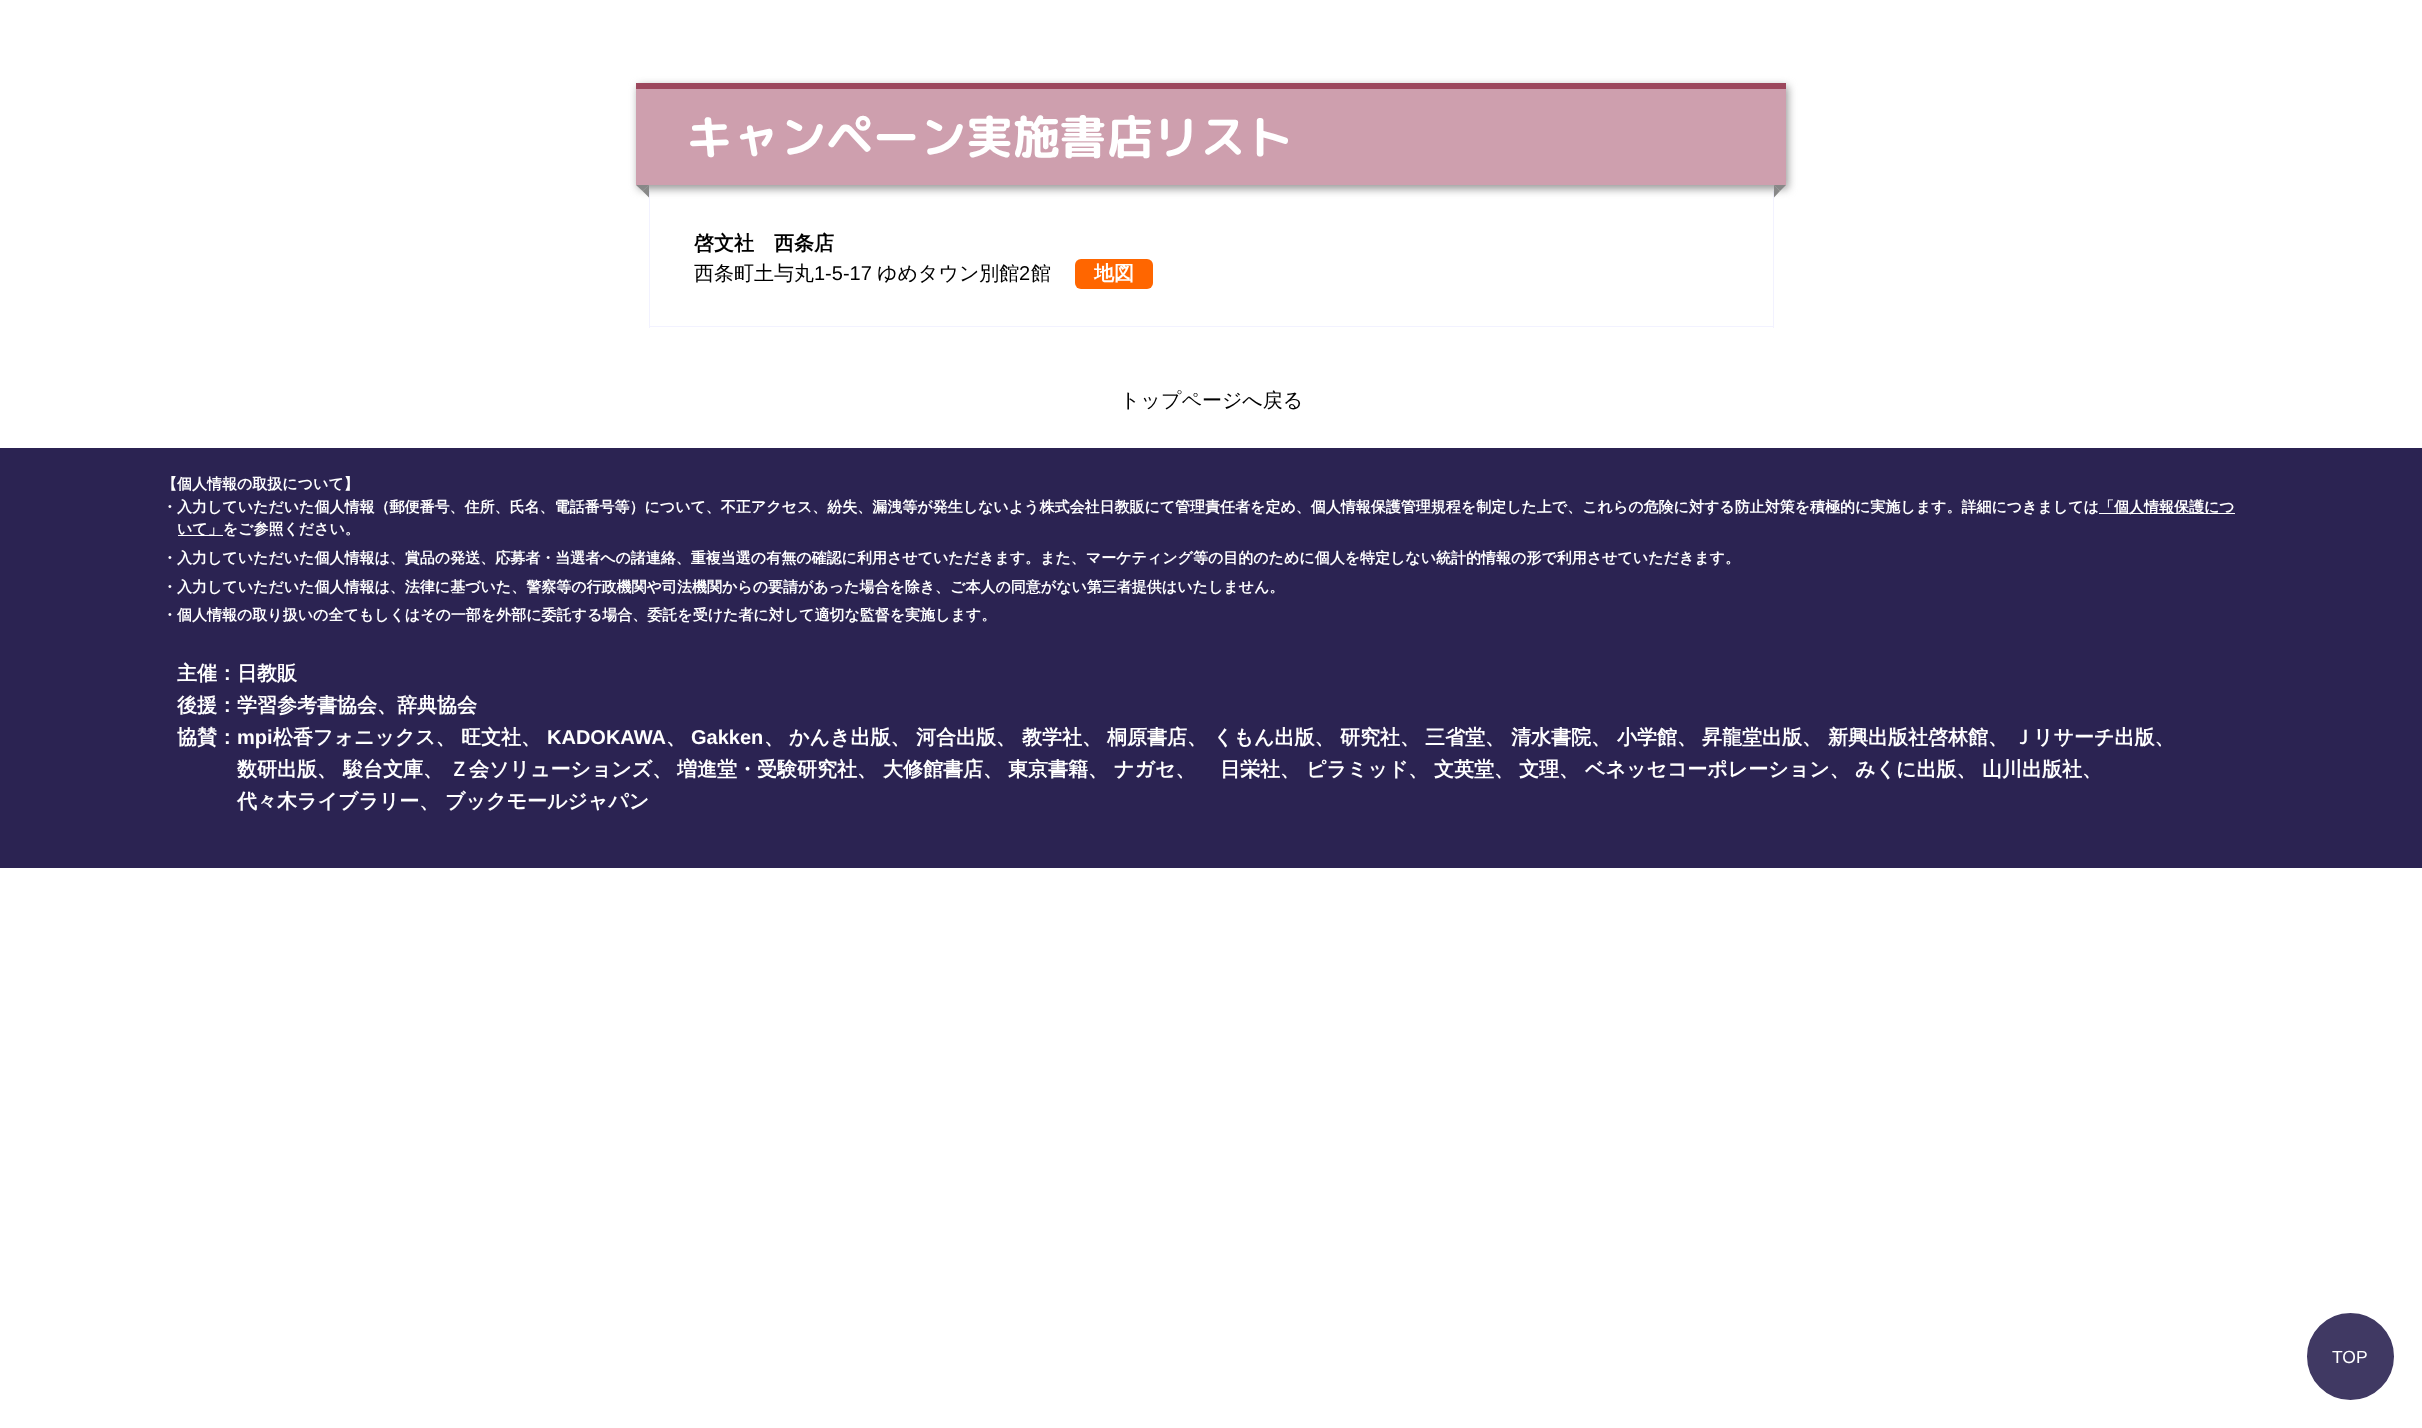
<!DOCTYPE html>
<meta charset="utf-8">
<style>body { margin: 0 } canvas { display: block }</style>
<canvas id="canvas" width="2422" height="1428"></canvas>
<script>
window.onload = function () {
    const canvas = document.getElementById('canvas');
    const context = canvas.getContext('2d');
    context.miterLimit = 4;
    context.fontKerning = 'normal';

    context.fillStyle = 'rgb(255, 255, 255)';
    context.fillRect(0, 0, 2422, 1428);
    context.fillStyle = 'rgb(242, 242, 255)';
    context.fillRect(1773, 191, 1, 137);
    context.fillRect(649, 326, 1125, 1);
    context.fillRect(649, 191, 1, 137);
    context.fillStyle = 'rgb(153, 153, 153)';
    context.filter = 'blur(4.5px)';
    context.beginPath();
    context.rect(638, 86, 1150, 103);
    context.fill();
    context.filter = 'none';
    context.fillStyle = 'rgb(206, 159, 174)';
    context.fillRect(636, 89, 1150, 96);
    context.fillStyle = 'rgb(156, 71, 93)';
    context.fillRect(636, 83, 1150, 6);
    context.fillStyle = 'rgb(136, 136, 136)';
    context.beginPath();
    context.moveTo(636, 185);
    context.lineTo(649, 185);
    context.lineTo(642.5, 191);
    context.closePath();
    context.fill();
    context.beginPath();
    context.moveTo(649, 185);
    context.lineTo(649, 197.5);
    context.lineTo(642.5, 191);
    context.closePath();
    context.fill();
    context.beginPath();
    context.moveTo(1774, 185);
    context.lineTo(1786, 185);
    context.lineTo(1780, 191);
    context.closePath();
    context.fill();
    context.beginPath();
    context.moveTo(1774, 197.5);
    context.lineTo(1774, 185);
    context.lineTo(1780, 191);
    context.closePath();
    context.fill();
    context.fillStyle = 'rgb(255, 102, 0)';
    context.beginPath();
    context.roundRect(1075, 259, 78, 30, 6);
    context.fill();
    context.fillStyle = 'rgb(43, 35, 82)';
    context.fillRect(0, 448, 2422, 420);
    context.fillStyle = 'rgb(255, 255, 255)';
    context.fillRect(2099, 513, 136, 1);
    context.fillRect(178, 535, 45, 1);
    context.fillStyle = 'rgb(64, 57, 99)';
    context.beginPath();
    context.arc(2350.5, 1356.5, 45.5, 0, 2 * Math.PI);
    context.fill();
    context.strokeStyle = 'rgb(255, 255, 255)';
    context.lineWidth = 4;
    context.stroke();
    context.font = 'bold 46.7px "Rounded Mplus 1c Bold"';
    context.fillStyle = 'rgb(255, 255, 255)';
    context.fillText('キャンペーン実施書店リスト', 686, 154);
    context.font = 'bold 20px WenQuanYi Zen Hei';
    context.fillStyle = 'rgb(0, 0, 0)';
    context.fillText('啓文社　西条店', 694, 250);
    context.font = '500 20px WenQuanYi Zen Hei';
    context.fillText('西条町土与丸', 694, 280);
    context.font = '20px Liberation Sans';
    context.fillText('1-5-17', 814, 280);
    context.font = '500 20px WenQuanYi Zen Hei';
    context.fillText('ゆめタウン別館', 877, 280);
    context.font = '20px Liberation Sans';
    context.fillText('2', 1019, 280);
    context.font = '500 20px WenQuanYi Zen Hei';
    context.fillText('館', 1031, 280);
    context.font = 'bold 20px WenQuanYi Zen Hei';
    context.fillStyle = 'rgb(255, 255, 255)';
    context.fillText('地図', 1094, 280);
    context.font = '500 20px WenQuanYi Zen Hei';
    context.fillStyle = 'rgb(0, 0, 0)';
    context.fillText('トップページへ戻る', 1120, 407);
    context.font = 'bold 15px WenQuanYi Zen Hei';
    context.fillStyle = 'rgb(255, 255, 255)';
    context.fillText('【個人情報の取扱について】', 162, 489);
    context.fillText('・入力していただいた個人情報（郵便番号、住所、氏名、電話番号等）について、不正アクセス、紛失、漏洩等が発生しないよう株式会社日教販にて管理責任者を定め、個人情報保護管理規程を制定した上で、これらの危険に対する防止対策を積極的に実施します。詳細につきましては', 162, 512);
    context.fillText('「個人情報保護につ', 2099, 512);
    context.fillText('いて」をご参照ください。', 177, 534);
    context.fillText('・入力していただいた個人情報は、賞品の発送、応募者・当選者への諸連絡、重複当選の有無の確認に利用させていただきます。また、マーケティング等の目的のために個人を特定しない統計的情報の形で利用させていただきます。', 162, 563);
    context.fillText('・入力していただいた個人情報は、法律に基づいた、警察等の行政機関や司法機関からの要請があった場合を除き、ご本人の同意がない第三者提供はいたしません。', 162, 592);
    context.fillText('・個人情報の取り扱いの全てもしくはその一部を外部に委託する場合、委託を受けた者に対して適切な監督を実施します。', 162, 620);
    context.font = 'bold 20px WenQuanYi Zen Hei';
    context.fillText('主催：日教販', 177, 680);
    context.fillText('後援：学習参考書協会、辞典協会', 177, 712);
    context.fillText('協賛：', 177, 744);
    context.font = 'bold 20px Liberation Sans';
    context.fillText('mpi', 237, 744);
    context.font = 'bold 20px WenQuanYi Zen Hei';
    context.fillText('松香フォニックス、', 273, 744);
    context.fillText('旺文社、', 461, 744);
    context.font = 'bold 20px Liberation Sans';
    context.fillText('KADOKAWA', 547, 744);
    context.font = 'bold 20px WenQuanYi Zen Hei';
    context.fillText('、', 666, 744);
    context.font = 'bold 20px Liberation Sans';
    context.fillText('Gakken', 691, 744);
    context.font = 'bold 20px WenQuanYi Zen Hei';
    context.fillText('、', 764, 744);
    context.fillText('かんき出版、', 789, 744);
    context.fillText('河合出版、', 916, 744);
    context.fillText('教学社、', 1022, 744);
    context.fillText('桐原書店、', 1107, 744);
    context.fillText('くもん出版、', 1213, 744);
    context.fillText('研究社、', 1340, 744);
    context.fillText('三省堂、', 1425, 744);
    context.fillText('清水書院、', 1511, 744);
    context.fillText('小学館、', 1617, 744);
    context.fillText('昇龍堂出版、', 1702, 744);
    context.fillText('新興出版社啓林館、', 1828, 744);
    context.fillText('Ｊリサーチ出版、', 2013, 744);
    context.fillText('数研出版、', 237, 776);
    context.fillText('駿台文庫、', 343, 776);
    context.fillText('Ｚ会ソリューションズ、', 449, 776);
    context.fillText('増進堂・受験研究社、', 677, 776);
    context.fillText('大修館書店、', 883, 776);
    context.fillText('東京書籍、', 1008, 776);
    context.fillText('ナガセ、', 1114, 776);
    context.fillText('日栄社、', 1220, 776);
    context.fillText('ピラミッド、', 1306, 776);
    context.fillText('文英堂、', 1434, 776);
    context.fillText('文理、', 1519, 776);
    context.fillText('ベネッセコーポレーション、', 1585, 776);
    context.fillText('みくに出版、', 1855, 776);
    context.fillText('山川出版社、', 1982, 776);
    context.fillText('代々木ライブラリー、', 237, 808);
    context.fillText('ブックモールジャパン', 445, 808);
    context.font = '17.5px Liberation Sans';
    context.fillText('TOP', 2332, 1363);
};
</script>
